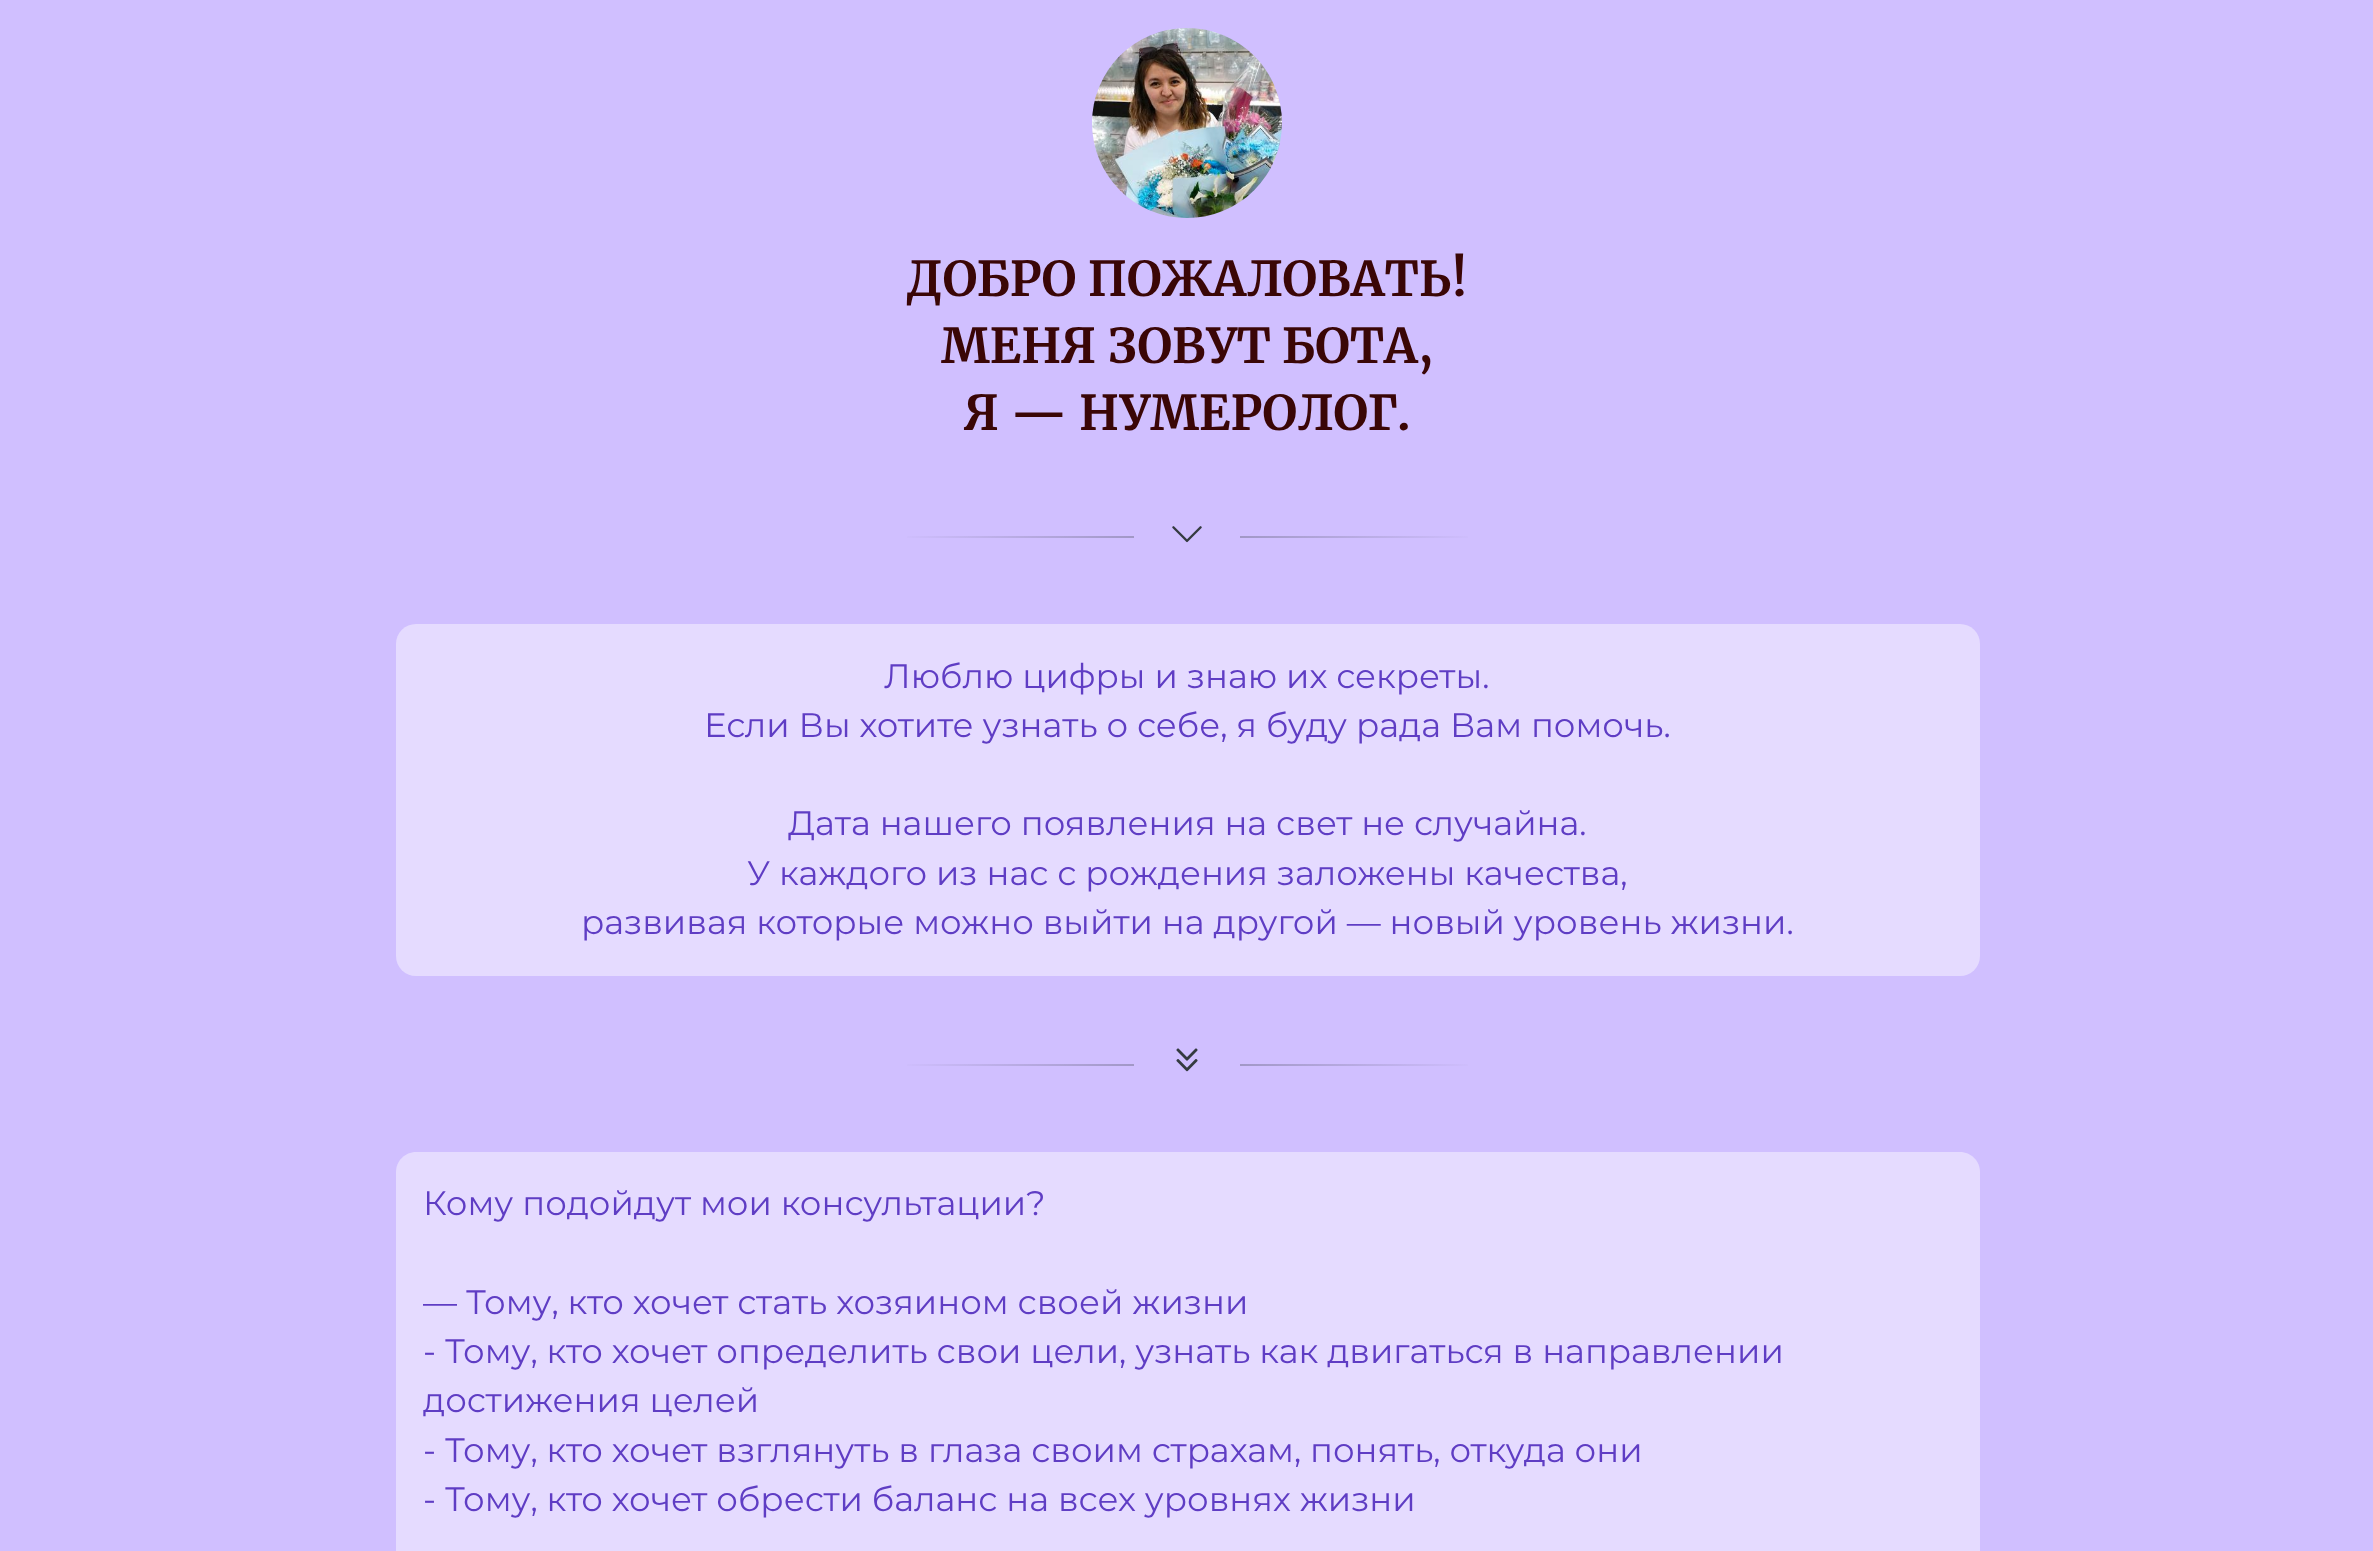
<!DOCTYPE html>
<meta charset="utf-8">
<style>body { margin: 0 } canvas { display: block }</style>
<canvas id="canvas" width="2373" height="1551"></canvas>
<img id="img1" src="images/1.png" hidden>
<img id="img2" src="images/2.png" hidden>
<img id="img3" src="images/3.png" hidden>
<script>
window.onload = function () {
    const canvas = document.getElementById('canvas');
    const context = canvas.getContext('2d');
    context.miterLimit = 4;
    context.fontKerning = 'normal';
    let gradient;

    context.fillStyle = 'rgb(208, 191, 255)';
    context.fillRect(0, 0, 2373, 1551);
    context.drawImage(document.getElementById('img1'), 1092, 28, 190, 190);
    gradient = context.createLinearGradient(1135, 537, 897, 537);
    gradient.addColorStop(0, 'rgb(161, 151, 198)');
    gradient.addColorStop(1, 'rgb(208, 191, 255)');
    context.fillStyle = gradient;
    context.fillRect(907, 536, 227, 2);
    context.drawImage(document.getElementById('img2'), 1172, 526, 30, 17);
    gradient = context.createLinearGradient(1240, 537, 1478, 537);
    gradient.addColorStop(0, 'rgb(161, 151, 198)');
    gradient.addColorStop(1, 'rgb(208, 191, 255)');
    context.fillStyle = gradient;
    context.fillRect(1240, 536, 228, 2);
    context.fillStyle = 'rgb(229, 219, 255)';
    context.beginPath();
    context.roundRect(396, 624, 1584, 352, 20);
    context.fill();
    gradient = context.createLinearGradient(1135, 1065, 897, 1065);
    gradient.addColorStop(0, 'rgb(161, 151, 198)');
    gradient.addColorStop(1, 'rgb(208, 191, 255)');
    context.fillStyle = gradient;
    context.fillRect(907, 1064, 227, 2);
    context.drawImage(document.getElementById('img3'), 1176, 1048, 22, 24);
    gradient = context.createLinearGradient(1240, 1065, 1478, 1065);
    gradient.addColorStop(0, 'rgb(161, 151, 198)');
    gradient.addColorStop(1, 'rgb(208, 191, 255)');
    context.fillStyle = gradient;
    context.fillRect(1240, 1064, 228, 2);
    context.fillStyle = 'rgb(229, 219, 255)';
    context.beginPath();
    context.moveTo(416, 1152);
    context.lineTo(1960, 1152);
    context.bezierCurveTo(1971, 1152, 1980, 1161, 1980, 1172);
    context.lineTo(1980, 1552);
    context.lineTo(396, 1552);
    context.lineTo(396, 1172);
    context.bezierCurveTo(396, 1161, 405, 1152, 416, 1152);
    context.closePath();
    context.fill();
    context.font = 'bold 48px Merriweather';
    context.fillStyle = 'rgb(58, 6, 6)';
    context.fillText('ДОБРО ПОЖАЛОВАТЬ!', 906, 296);
    context.fillText('МЕНЯ ЗОВУТ БОТА,', 941, 363);
    context.fillText('Я — НУМЕРОЛОГ.', 964, 430);
    context.font = '100 34px Montserrat';
    context.fillStyle = 'rgb(95, 61, 196)';
    context.fillText('Люблю цифры и знаю их секреты.', 884, 688);
    context.fillText('Если Вы хотите узнать о себе, я буду рада Вам помочь.', 704, 737);
    context.fillText('Дата нашего появления на свет не случайна.', 788, 835);
    context.fillText('У каждого из нас с рождения заложены качества,', 747, 885);
    context.fillText('развивая которые можно выйти на другой — новый уровень жизни.', 581, 934);
    context.fillText('Кому подойдут мои консультации?', 423, 1215);
    context.fillText('— Тому, кто хочет стать хозяином своей жизни', 423, 1314);
    context.fillText('‌- Тому, кто хочет определить свои цели, узнать как двигаться в направлении', 423, 1363);
    context.fillText('достижения целей', 423, 1412);
    context.fillText('‌- Тому, кто хочет взглянуть в глаза своим страхам, понять, откуда они', 423, 1462);
    context.fillText('‌- Тому, кто хочет обрести баланс на всех уровнях жизни', 423, 1511);
};
</script>
